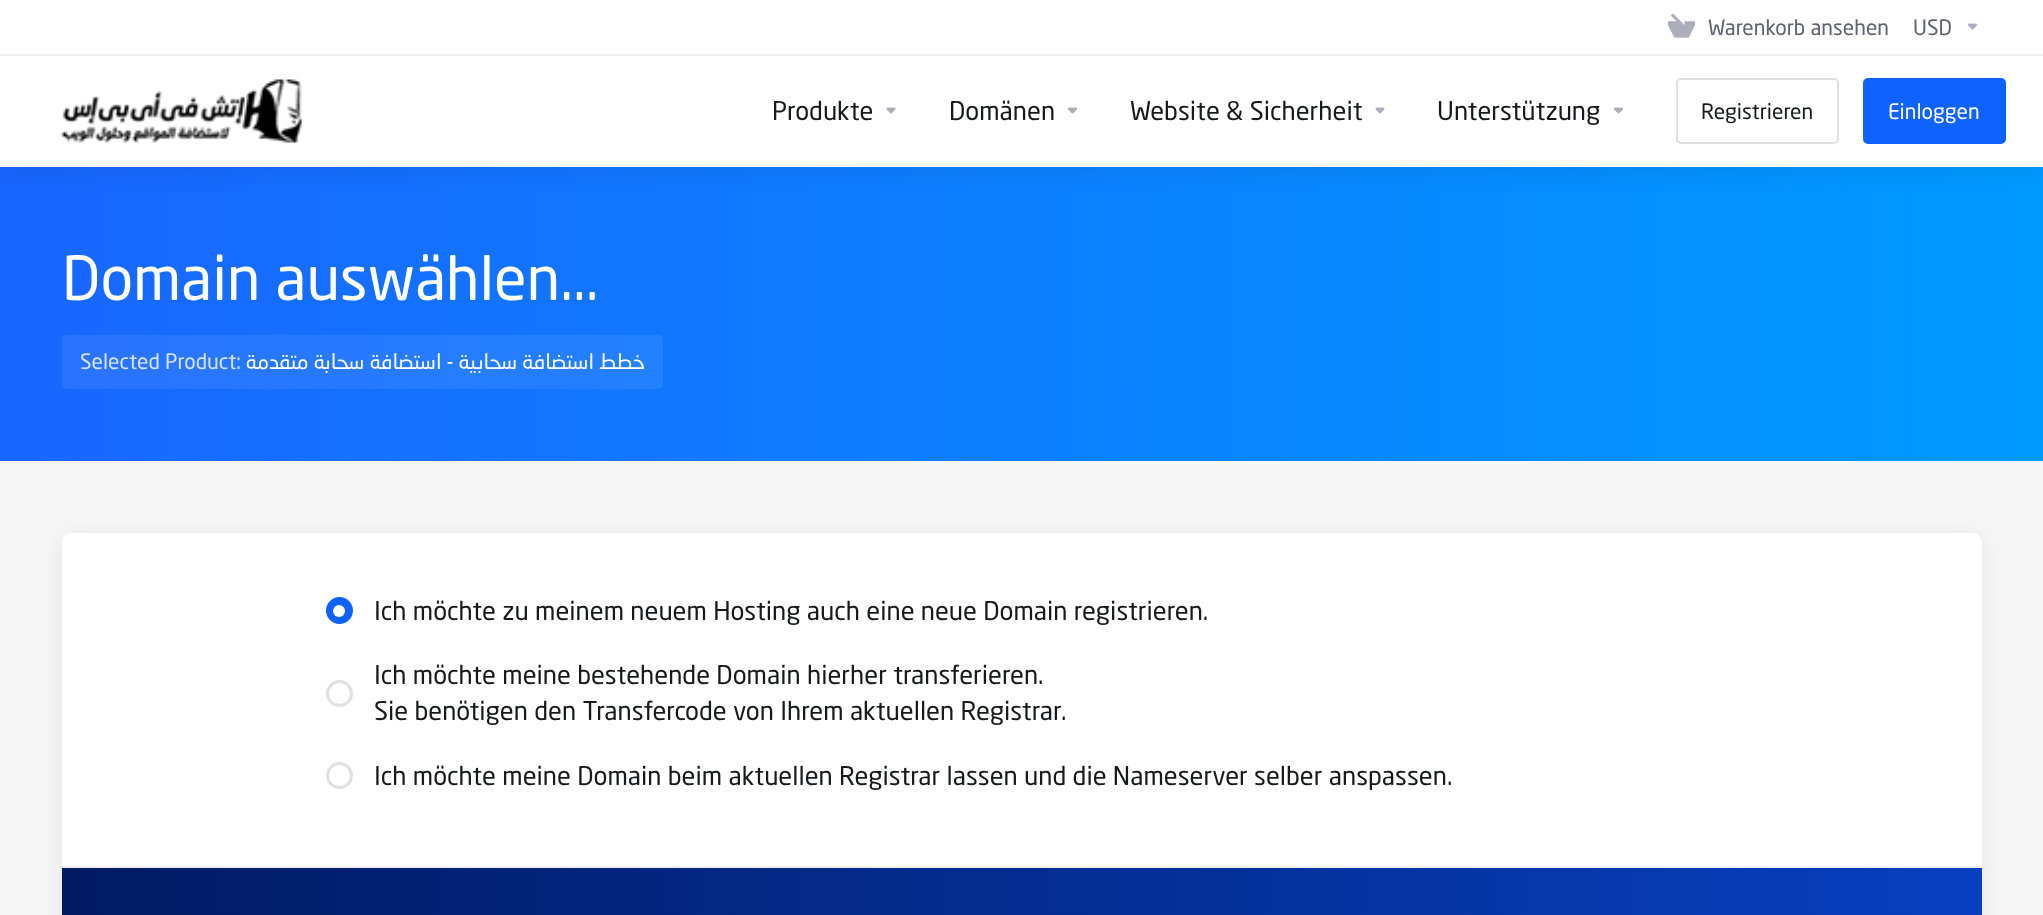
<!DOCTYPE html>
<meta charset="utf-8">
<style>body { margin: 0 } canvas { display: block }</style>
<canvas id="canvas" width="2043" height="915"></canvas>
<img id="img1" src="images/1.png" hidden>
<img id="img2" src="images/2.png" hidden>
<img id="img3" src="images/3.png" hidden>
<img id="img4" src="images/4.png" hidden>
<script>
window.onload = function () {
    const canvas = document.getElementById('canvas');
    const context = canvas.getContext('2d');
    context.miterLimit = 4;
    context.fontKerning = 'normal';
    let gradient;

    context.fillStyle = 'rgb(247, 247, 248)';
    context.fillRect(0, 0, 2043, 915);
    gradient = context.createLinearGradient(0, 314, 2043, 313);
    gradient.addColorStop(0, 'rgb(25, 102, 255)');
    gradient.addColorStop(1, 'rgb(0, 154, 255)');
    context.fillStyle = gradient;
    context.fillRect(0, 167, 2043, 294);
    context.fillStyle = 'rgba(0, 0, 0, 0.08)';
    context.filter = 'blur(12px)';
    context.beginPath();
    context.rect(0, 3, 2043, 167);
    context.fill();
    context.filter = 'none';
    context.fillStyle = 'rgb(255, 255, 255)';
    context.fillRect(0, 0, 2043, 167);
    context.fillStyle = 'rgb(239, 239, 241)';
    context.fillRect(0, 54, 2043, 2);
    context.drawImage(document.getElementById('img1'), 1668, 13, 27, 25);
    context.drawImage(document.getElementById('img2'), 1968, 23, 9, 7);
    context.drawImage(document.getElementById('img3'), 61, 79, 241, 64);
    context.drawImage(document.getElementById('img4'), 886, 107, 10, 7);
    context.drawImage(document.getElementById('img2'), 1068, 107, 9, 7);
    context.drawImage(document.getElementById('img4'), 1375, 107, 10, 7);
    context.drawImage(document.getElementById('img2'), 1614, 107, 9, 7);
    context.beginPath();
    context.roundRect(1677, 79, 161, 64, 4);
    context.strokeStyle = 'rgb(222, 224, 227)';
    context.lineWidth = 2;
    context.stroke();
    context.fillStyle = 'rgb(16, 98, 254)';
    context.beginPath();
    context.roundRect(1864, 79, 141, 64, 4);
    context.fill();
    context.strokeStyle = 'rgb(16, 98, 254)';
    context.stroke();
    context.fillStyle = 'rgba(255, 255, 255, 0.08)';
    context.beginPath();
    context.roundRect(62, 335, 601, 54, 5);
    context.fill();
    context.fillStyle = 'rgba(0, 0, 0, 0.08)';
    context.filter = 'blur(12px)';
    context.beginPath();
    context.roundRect(62, 536, 1920, 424, 9);
    context.fill();
    context.filter = 'none';
    context.fillStyle = 'rgb(255, 255, 255)';
    context.beginPath();
    context.roundRect(62, 533, 1920, 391, 9);
    context.fill();
    context.fillStyle = 'rgb(16, 98, 254)';
    context.beginPath();
    context.arc(339.5, 610.5, 12, 0, 2 * Math.PI);
    context.fill();
    context.lineWidth = 3;
    context.stroke();
    context.fillStyle = 'rgb(255, 255, 255)';
    context.beginPath();
    context.arc(339, 611, 6, 0, 2 * Math.PI);
    context.fill();
    context.beginPath();
    context.arc(339.5, 693.5, 12, 0, 2 * Math.PI);
    context.strokeStyle = 'rgb(222, 224, 227)';
    context.stroke();
    context.beginPath();
    context.arc(339.5, 775.5, 12, 0, 2 * Math.PI);
    context.stroke();
    gradient = context.createLinearGradient(62, 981, 1982, 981);
    gradient.addColorStop(0, 'rgb(1, 26, 98)');
    gradient.addColorStop(1, 'rgb(8, 63, 191)');
    context.fillStyle = gradient;
    context.fillRect(62, 868, 1920, 47);
    context.fillStyle = 'rgb(239, 239, 241)';
    context.fillRect(62, 866, 1920, 2);
    context.font = '21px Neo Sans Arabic';
    context.fillStyle = 'rgb(94, 99, 110)';
    context.fillText('Warenkorb ansehen', 1708, 35);
    context.fillText('USD', 1913, 35);
    context.font = '25.5px Neo Sans Arabic';
    context.fillStyle = 'rgb(23, 25, 28)';
    context.fillText('Produkte', 772, 120);
    context.fillText('Domänen', 949, 120);
    context.fillText('Website & Sicherheit', 1130, 120);
    context.fillText('Unterstützung', 1437, 120);
    context.font = '21px Neo Sans Arabic';
    context.fillText('Registrieren', 1701, 119);
    context.fillStyle = 'rgb(255, 255, 255)';
    context.fillText('Einloggen', 1888, 119);
    context.font = '60px Neo Sans Arabic';
    context.fillText('Domain auswählen...', 62, 300);
    context.font = '21px Neo Sans Arabic';
    context.fillStyle = 'rgb(212, 228, 255)';
    context.fillText('Selected Product:', 80, 369);
    context.wordSpacing = '-0.25px';
    context.direction = 'rtl';
    context.fillStyle = 'rgb(255, 255, 255)';
    context.fillText('خطط استضافة سحابية - استضافة سحابة متقدمة', 645, 369);
    context.wordSpacing = '0px';
    context.direction = 'ltr';
    context.font = '25.5px Neo Sans Arabic';
    context.fillStyle = 'rgb(23, 25, 28)';
    context.fillText('Ich möchte zu meinem neuem Hosting auch eine neue Domain registrieren.', 374, 620);
    context.fillText('Ich möchte meine bestehende Domain hierher transferieren.', 374, 684);
    context.fillText('Sie benötigen den Transfercode von Ihrem aktuellen Registrar.', 374, 720);
    context.fillText('Ich möchte meine Domain beim aktuellen Registrar lassen und die Nameserver selber anspassen.', 374, 785);
};
</script>
